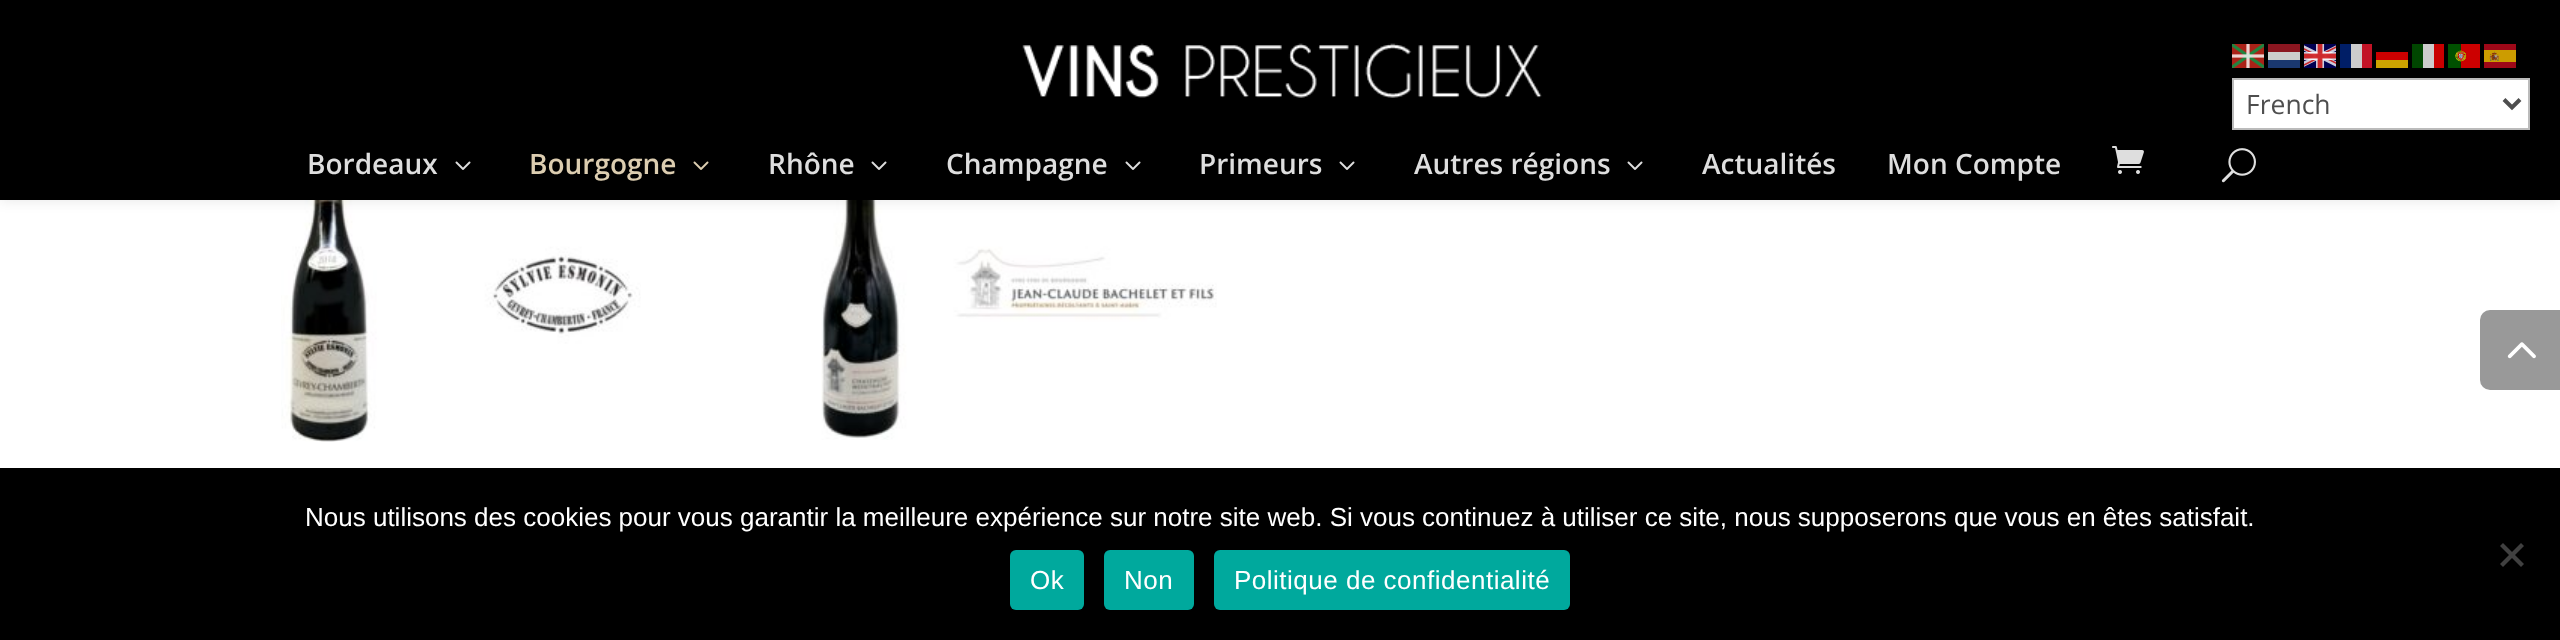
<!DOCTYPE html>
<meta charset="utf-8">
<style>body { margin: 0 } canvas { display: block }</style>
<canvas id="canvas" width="2560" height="640"></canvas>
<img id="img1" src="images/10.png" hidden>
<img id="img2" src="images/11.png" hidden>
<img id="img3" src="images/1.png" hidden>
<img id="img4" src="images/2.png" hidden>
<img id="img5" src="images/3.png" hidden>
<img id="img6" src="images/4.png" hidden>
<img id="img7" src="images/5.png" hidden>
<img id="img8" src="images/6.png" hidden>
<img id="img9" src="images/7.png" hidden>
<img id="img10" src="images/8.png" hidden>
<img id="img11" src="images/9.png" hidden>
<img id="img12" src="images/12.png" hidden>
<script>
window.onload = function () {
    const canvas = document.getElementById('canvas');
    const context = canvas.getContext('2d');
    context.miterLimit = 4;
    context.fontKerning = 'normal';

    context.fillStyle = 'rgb(255, 255, 255)';
    context.fillRect(0, 0, 2560, 640);
    context.drawImage(document.getElementById('img1'), 281, 200, 360, 242);
    context.drawImage(document.getElementById('img2'), 821, 200, 396, 240);
    context.fillStyle = 'rgba(0, 0, 0, 0.1)';
    context.filter = 'blur(7px)';
    context.beginPath();
    context.rect(0, 0, 2560, 200);
    context.fill();
    context.filter = 'none';
    context.fillStyle = 'rgb(0, 0, 0)';
    context.fillRect(0, 0, 2560, 200);
    context.drawImage(document.getElementById('img3'), 2232, 44, 32, 24);
    context.fillStyle = 'rgb(139, 22, 32)';
    context.fillRect(2268, 44, 32, 8);
    context.drawImage(document.getElementById('img4'), 2304, 44, 32, 24);
    context.fillStyle = 'rgb(0, 30, 102)';
    context.fillRect(2340, 44, 11, 24);
    context.fillStyle = 'rgb(204, 204, 204)';
    context.fillRect(2351, 44, 11, 24);
    context.fillStyle = 'rgb(194, 19, 38)';
    context.fillRect(2362, 44, 10, 24);
    context.fillStyle = 'rgb(0, 70, 0)';
    context.fillRect(2412, 44, 11, 24);
    context.fillStyle = 'rgb(204, 204, 204)';
    context.fillRect(2423, 44, 11, 24);
    context.fillStyle = 'rgb(202, 0, 0)';
    context.fillRect(2434, 44, 10, 24);
    context.drawImage(document.getElementById('img5'), 2448, 44, 32, 24);
    context.drawImage(document.getElementById('img6'), 2484, 44, 32, 24);
    context.fillStyle = 'rgb(204, 204, 204)';
    context.fillRect(2268, 52, 32, 8);
    context.fillStyle = 'rgb(204, 0, 0)';
    context.fillRect(2376, 52, 32, 8);
    context.fillStyle = 'rgb(26, 56, 111)';
    context.fillRect(2268, 60, 32, 8);
    context.fillStyle = 'rgb(204, 163, 0)';
    context.fillRect(2376, 60, 32, 8);
    context.fillStyle = 'rgb(255, 255, 255)';
    context.beginPath();
    context.rect(2233, 79, 296, 50);
    context.fill();
    context.strokeStyle = 'rgb(187, 187, 187)';
    context.lineWidth = 2;
    context.stroke();
    context.beginPath();
    context.moveTo(2504, 99.5);
    context.lineTo(2512, 107.5);
    context.lineTo(2520, 99.5);
    context.strokeStyle = 'rgb(78, 78, 78)';
    context.lineWidth = 4;
    context.stroke();
    context.drawImage(document.getElementById('img7'), 1022, 43, 520, 55);
    context.drawImage(document.getElementById('img8'), 455, 161, 16, 9);
    context.drawImage(document.getElementById('img9'), 693, 161, 16, 9);
    context.drawImage(document.getElementById('img8'), 871, 161, 16, 9);
    context.drawImage(document.getElementById('img8'), 1125, 161, 16, 9);
    context.drawImage(document.getElementById('img8'), 1339, 161, 16, 9);
    context.drawImage(document.getElementById('img8'), 1627, 161, 16, 9);
    context.drawImage(document.getElementById('img10'), 2112, 146, 32, 28);
    context.drawImage(document.getElementById('img11'), 2221, 148, 35, 35);
    context.fillStyle = 'rgb(153, 153, 153)';
    context.beginPath();
    context.roundRect(2480, 310, 80, 80, [10, 0, 0, 10]);
    context.fill();
    context.drawImage(document.getElementById('img12'), 2507, 342, 29, 17);
    context.fillStyle = 'rgb(0, 0, 0)';
    context.fillRect(0, 468, 2560, 172);
    context.fillStyle = 'rgb(64, 64, 64)';
    context.beginPath();
    context.moveTo(2521, 543);
    context.lineTo(2524, 546);
    context.lineTo(2503, 567);
    context.lineTo(2500, 564);
    context.closePath();
    context.fill();
    context.beginPath();
    context.moveTo(2500, 546);
    context.lineTo(2503, 543);
    context.lineTo(2524, 564);
    context.lineTo(2521, 567);
    context.closePath();
    context.fill();
    context.fillStyle = 'rgb(0, 169, 157)';
    context.beginPath();
    context.roundRect(1010, 550, 74, 60, 6);
    context.fill();
    context.beginPath();
    context.roundRect(1104, 550, 90, 60, 6);
    context.fill();
    context.beginPath();
    context.roundRect(1214, 550, 356, 60, 6);
    context.fill();
    context.font = '26.5px Open Sans';
    context.fillStyle = 'rgb(78, 78, 78)';
    context.fillText('French', 2246, 114);
    context.font = '600 28px Open Sans';
    context.fillStyle = 'rgb(222, 222, 222)';
    context.fillText('Bordeaux', 307, 174);
    context.fillStyle = 'rgb(220, 205, 176)';
    context.fillText('Bourgogne', 529, 174);
    context.fillStyle = 'rgb(222, 222, 222)';
    context.fillText('Rhône', 768, 174);
    context.fillText('Champagne', 946, 174);
    context.fillText('Primeurs', 1199, 174);
    context.fillText('Autres régions', 1414, 174);
    context.fillText('Actualités', 1702, 174);
    context.fillText('Mon Compte', 1887, 174);
    context.font = '26px Liberation Sans';
    context.fillStyle = 'rgb(255, 255, 255)';
    context.fillText('Nous utilisons des cookies pour vous garantir la meilleure expérience sur notre site web. Si vous continuez à utiliser ce site, nous supposerons que vous en êtes satisfait.', 305, 526);
    context.letterSpacing = '0.5px';
    context.fillText('Ok', 1030, 589);
    context.fillText('Non', 1124, 589);
    context.fillText('Politique de confidentialité', 1234, 589);
};
</script>
